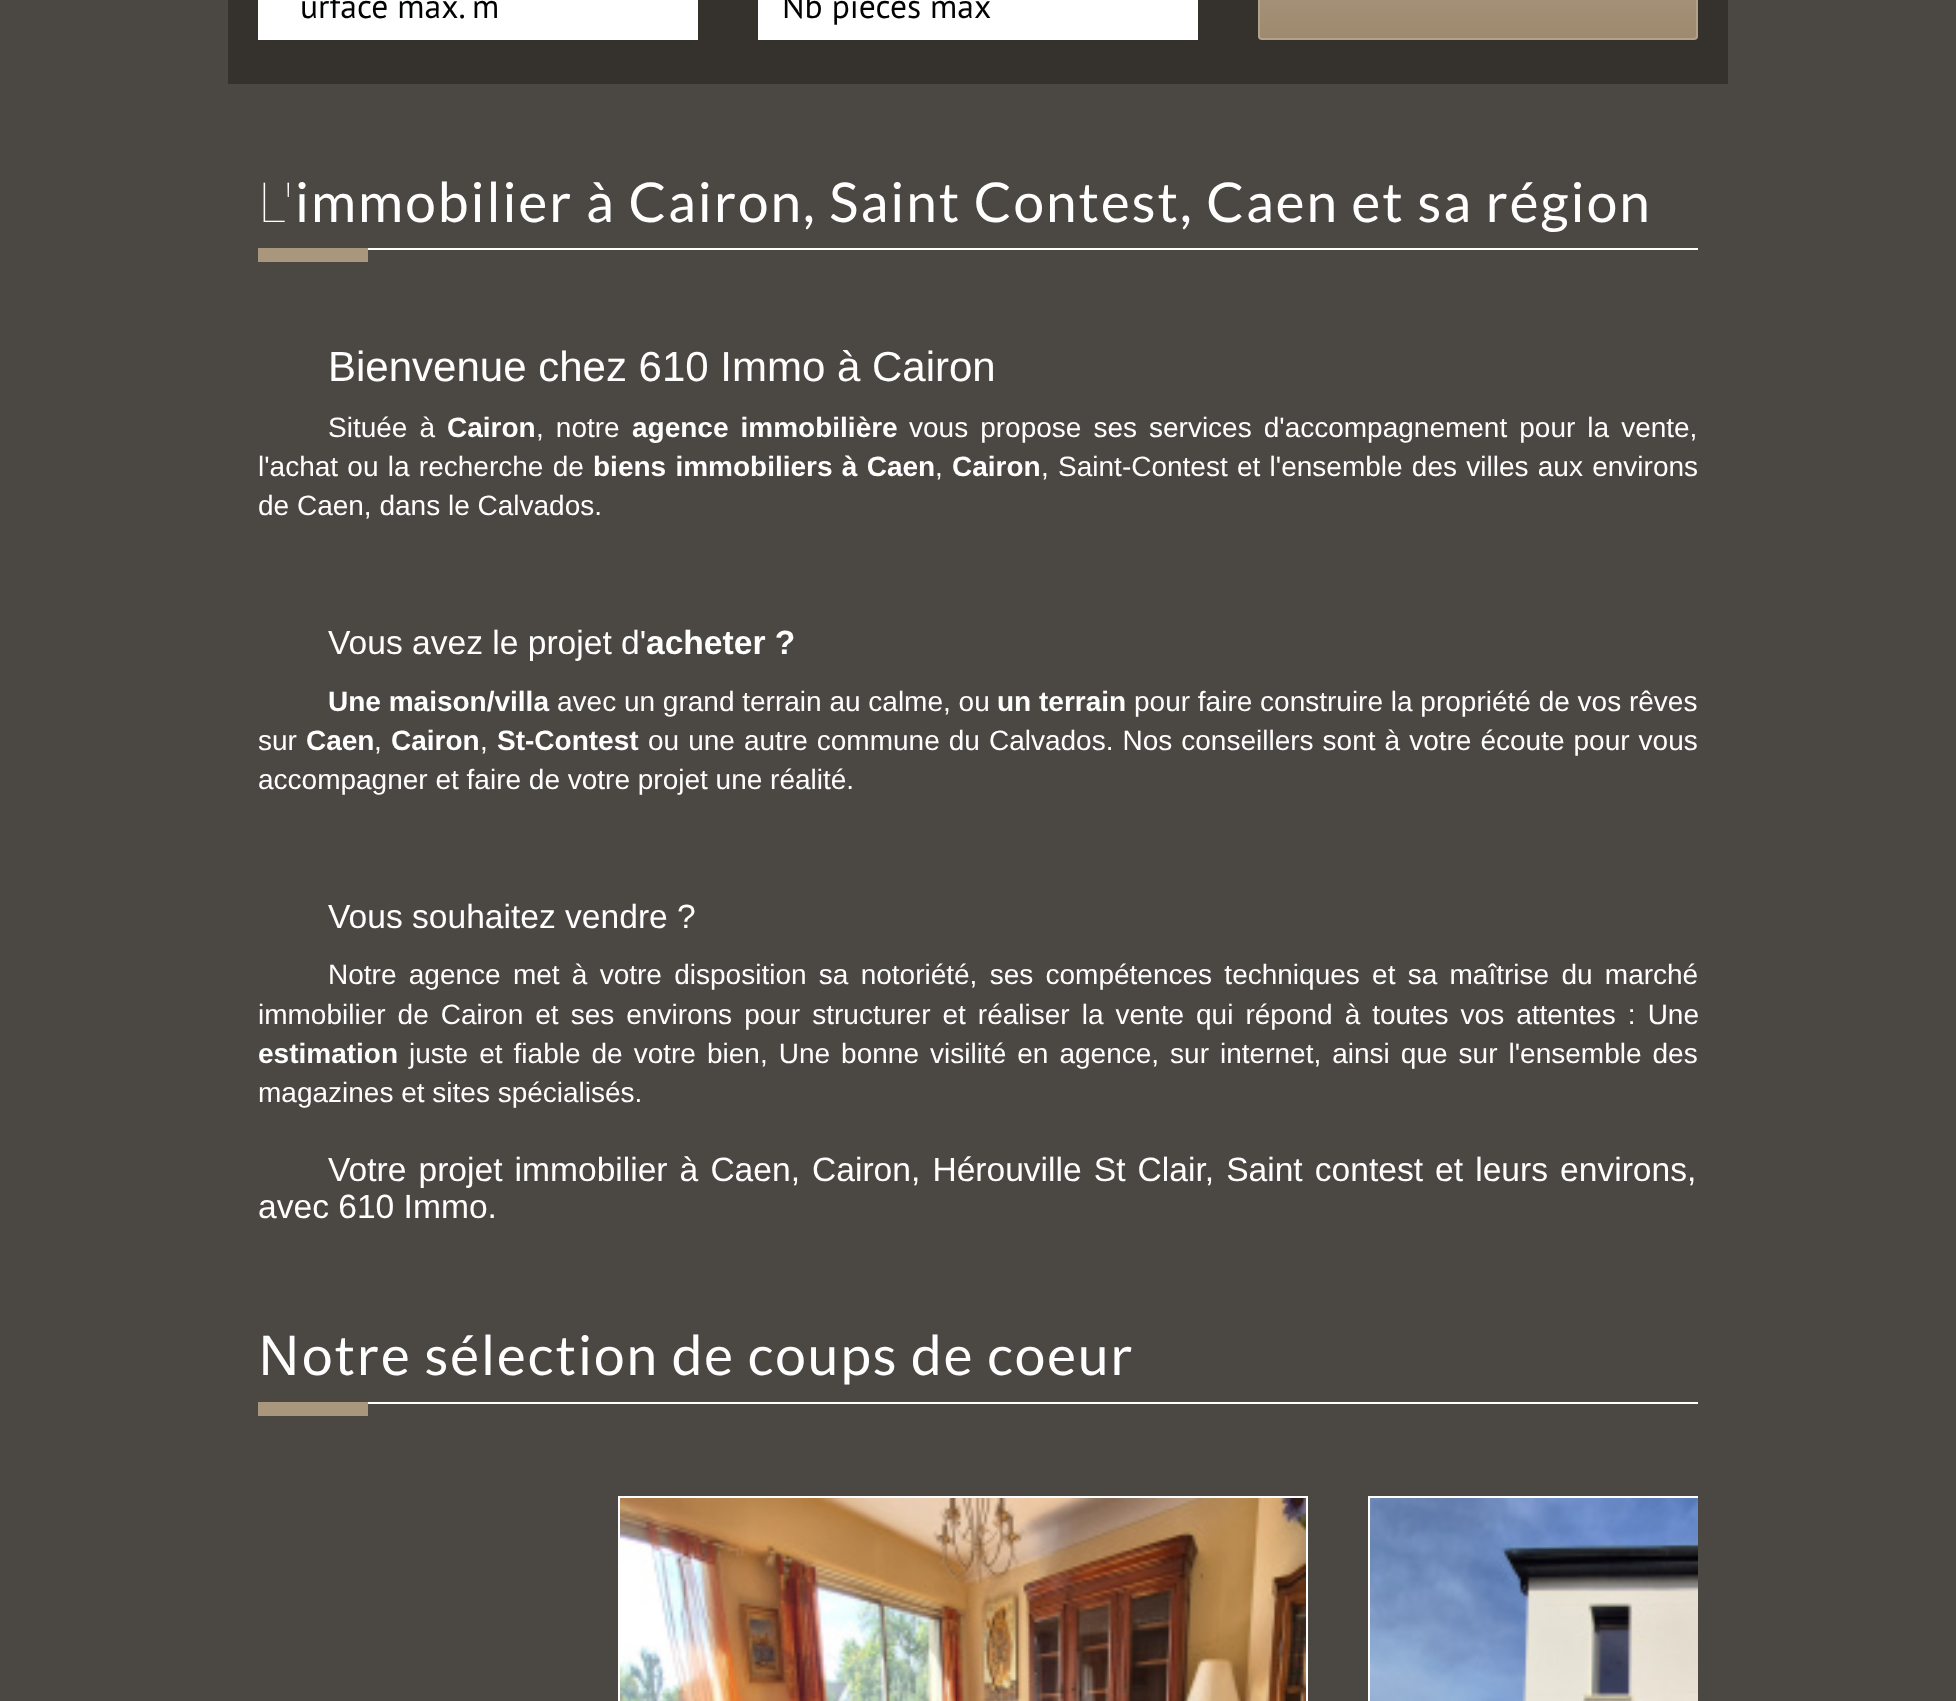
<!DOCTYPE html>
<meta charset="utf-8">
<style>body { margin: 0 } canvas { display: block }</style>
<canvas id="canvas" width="1956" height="1701"></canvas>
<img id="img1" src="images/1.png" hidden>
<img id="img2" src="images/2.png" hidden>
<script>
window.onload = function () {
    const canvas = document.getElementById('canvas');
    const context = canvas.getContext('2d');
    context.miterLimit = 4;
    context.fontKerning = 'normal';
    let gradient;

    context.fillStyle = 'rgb(75, 71, 66)';
    context.fillRect(0, 0, 1956, 1701);
    context.fillStyle = 'rgb(53, 50, 46)';
    context.fillRect(228, 0, 1500, 84);
    context.fillStyle = 'rgb(255, 255, 255)';
    context.fillRect(258, 0, 440, 40);
    context.fillRect(758, 0, 440, 40);
    gradient = context.createLinearGradient(1478, -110, 1478, 38);
    gradient.addColorStop(0, 'rgb(178, 162, 140)');
    gradient.addColorStop(1, 'rgb(158, 138, 110)');
    context.fillStyle = gradient;
    context.fillRect(1258, 0, 440, 38);
    context.beginPath();
    context.roundRect(1259, -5, 438, 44, 3);
    context.strokeStyle = 'rgb(178, 162, 140)';
    context.lineWidth = 2;
    context.stroke();
    context.fillStyle = 'rgb(255, 255, 255)';
    context.fillRect(368, 248, 1330, 2);
    context.fillStyle = 'rgb(168, 150, 125)';
    context.fillRect(258, 248, 110, 14);
    context.fillStyle = 'rgb(255, 255, 255)';
    context.fillRect(368, 1402, 1330, 2);
    context.fillStyle = 'rgb(168, 150, 125)';
    context.fillRect(258, 1402, 110, 14);
    context.strokeStyle = 'rgb(255, 255, 255)';
    context.strokeRect(619, 1497, 688, 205);
    context.drawImage(document.getElementById('img1'), 620, 1498, 686, 203);
    context.save();
    context.beginPath();
    context.rect(258, 1496, 1440, 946);
    context.clip();
    context.strokeRect(1369, 1497, 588, 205);
    context.restore();
    context.drawImage(document.getElementById('img2'), 1370, 1498, 328, 203);
    context.font = '33.6px PT Sans';
    context.fillStyle = 'rgb(2, 3, 3)';
    context.fillText('urface max. m', 300, 18);
    context.fillText('Nb pièces max', 782, 18);
    context.letterSpacing = '2px';
    context.font = '100 54.9px Noto Sans';
    context.fillStyle = 'rgb(255, 255, 255)';
    context.fillText('L\'', 258, 222);
    context.font = '54.9px Lato';
    context.fillText('immobilier à Cairon, Saint Contest, Caen et sa région', 295, 222);
    context.letterSpacing = '0px';
    context.font = '42px Liberation Sans';
    context.fillText('Bienvenue chez 610 Immo à Cairon', 328, 381);
    context.wordSpacing = '4.25px';
    context.font = '28px Liberation Sans';
    context.fillText('Située à', 328, 437);
    context.wordSpacing = '0px';
    context.font = 'bold 28px Liberation Sans';
    context.fillText('Cairon', 447, 437);
    context.wordSpacing = '4.25px';
    context.font = '28px Liberation Sans';
    context.fillText(', notre', 536, 437);
    context.font = 'bold 28px Liberation Sans';
    context.fillText('agence immobilière', 632, 437);
    context.font = '28px Liberation Sans';
    context.fillText('vous propose ses services d\'accompagnement pour la vente,', 909, 437);
    context.wordSpacing = '1.5px';
    context.fillText('l\'achat ou la recherche de', 258, 476);
    context.font = 'bold 28px Liberation Sans';
    context.fillText('biens immobiliers à Caen', 593, 476);
    context.wordSpacing = '0px';
    context.font = '28px Liberation Sans';
    context.fillText(',', 935, 476);
    context.font = 'bold 28px Liberation Sans';
    context.fillText('Cairon', 952, 476);
    context.wordSpacing = '1.5px';
    context.font = '28px Liberation Sans';
    context.fillText(', Saint-Contest et l\'ensemble des villes aux environs', 1041, 476);
    context.wordSpacing = '0px';
    context.fillText('de Caen, dans le Calvados.', 258, 515);
    context.font = '33.6px Liberation Sans';
    context.fillText('Vous avez le projet d\'', 328, 654);
    context.font = 'bold 33.6px Liberation Sans';
    context.fillText('acheter ?', 646, 654);
    context.font = 'bold 28px Liberation Sans';
    context.fillText('Une maison/villa', 328, 711);
    context.font = '28px Liberation Sans';
    context.fillText('avec un grand terrain au calme, ou', 557, 711);
    context.font = 'bold 28px Liberation Sans';
    context.fillText('un terrain', 997, 711);
    context.font = '28px Liberation Sans';
    context.fillText('pour faire construire la propriété de vos rêves', 1134, 711);
    context.fillText('sur', 258, 750);
    context.font = 'bold 28px Liberation Sans';
    context.fillText('Caen', 306, 750);
    context.font = '28px Liberation Sans';
    context.fillText(',', 374, 750);
    context.font = 'bold 28px Liberation Sans';
    context.fillText('Cairon', 391, 750);
    context.font = '28px Liberation Sans';
    context.fillText(',', 480, 750);
    context.font = 'bold 28px Liberation Sans';
    context.fillText('St-Contest', 497, 750);
    context.wordSpacing = '1.25px';
    context.font = '28px Liberation Sans';
    context.fillText('ou une autre commune du Calvados. Nos conseillers sont à votre écoute pour vous', 648, 750);
    context.wordSpacing = '0px';
    context.fillText('accompagner et faire de votre projet une réalité.', 258, 789);
    context.font = '33.6px Liberation Sans';
    context.fillText('Vous souhaitez vendre ?', 328, 928);
    context.wordSpacing = '4.5px';
    context.font = '28px Liberation Sans';
    context.fillText('Notre agence met à votre disposition sa notoriété, ses compétences techniques et sa maîtrise du marché', 328, 984);
    context.wordSpacing = '4.25px';
    context.fillText('immobilier de Cairon et ses environs pour structurer et réaliser la vente qui répond à toutes vos attentes : Une', 258, 1024);
    context.wordSpacing = '0px';
    context.font = 'bold 28px Liberation Sans';
    context.fillText('estimation', 258, 1063);
    context.wordSpacing = '3.25px';
    context.font = '28px Liberation Sans';
    context.fillText('juste et fiable de votre bien, Une bonne visilité en agence, sur internet, ainsi que sur l\'ensemble des', 409, 1063);
    context.wordSpacing = '0px';
    context.fillText('magazines et sites spécialisés.', 258, 1102);
    context.wordSpacing = '2.75px';
    context.font = '33.6px Liberation Sans';
    context.fillText('Votre projet immobilier à Caen, Cairon, Hérouville St Clair, Saint contest et leurs environs,', 328, 1181);
    context.wordSpacing = '0px';
    context.fillText('avec 610 Immo.', 258, 1218);
    context.letterSpacing = '2px';
    context.font = '54.9px Noto Sans';
    context.fillText('N', 258, 1375);
    context.font = '54.9px Lato';
    context.fillText('otre sélection de coups de coeur', 302, 1375);
};
</script>
